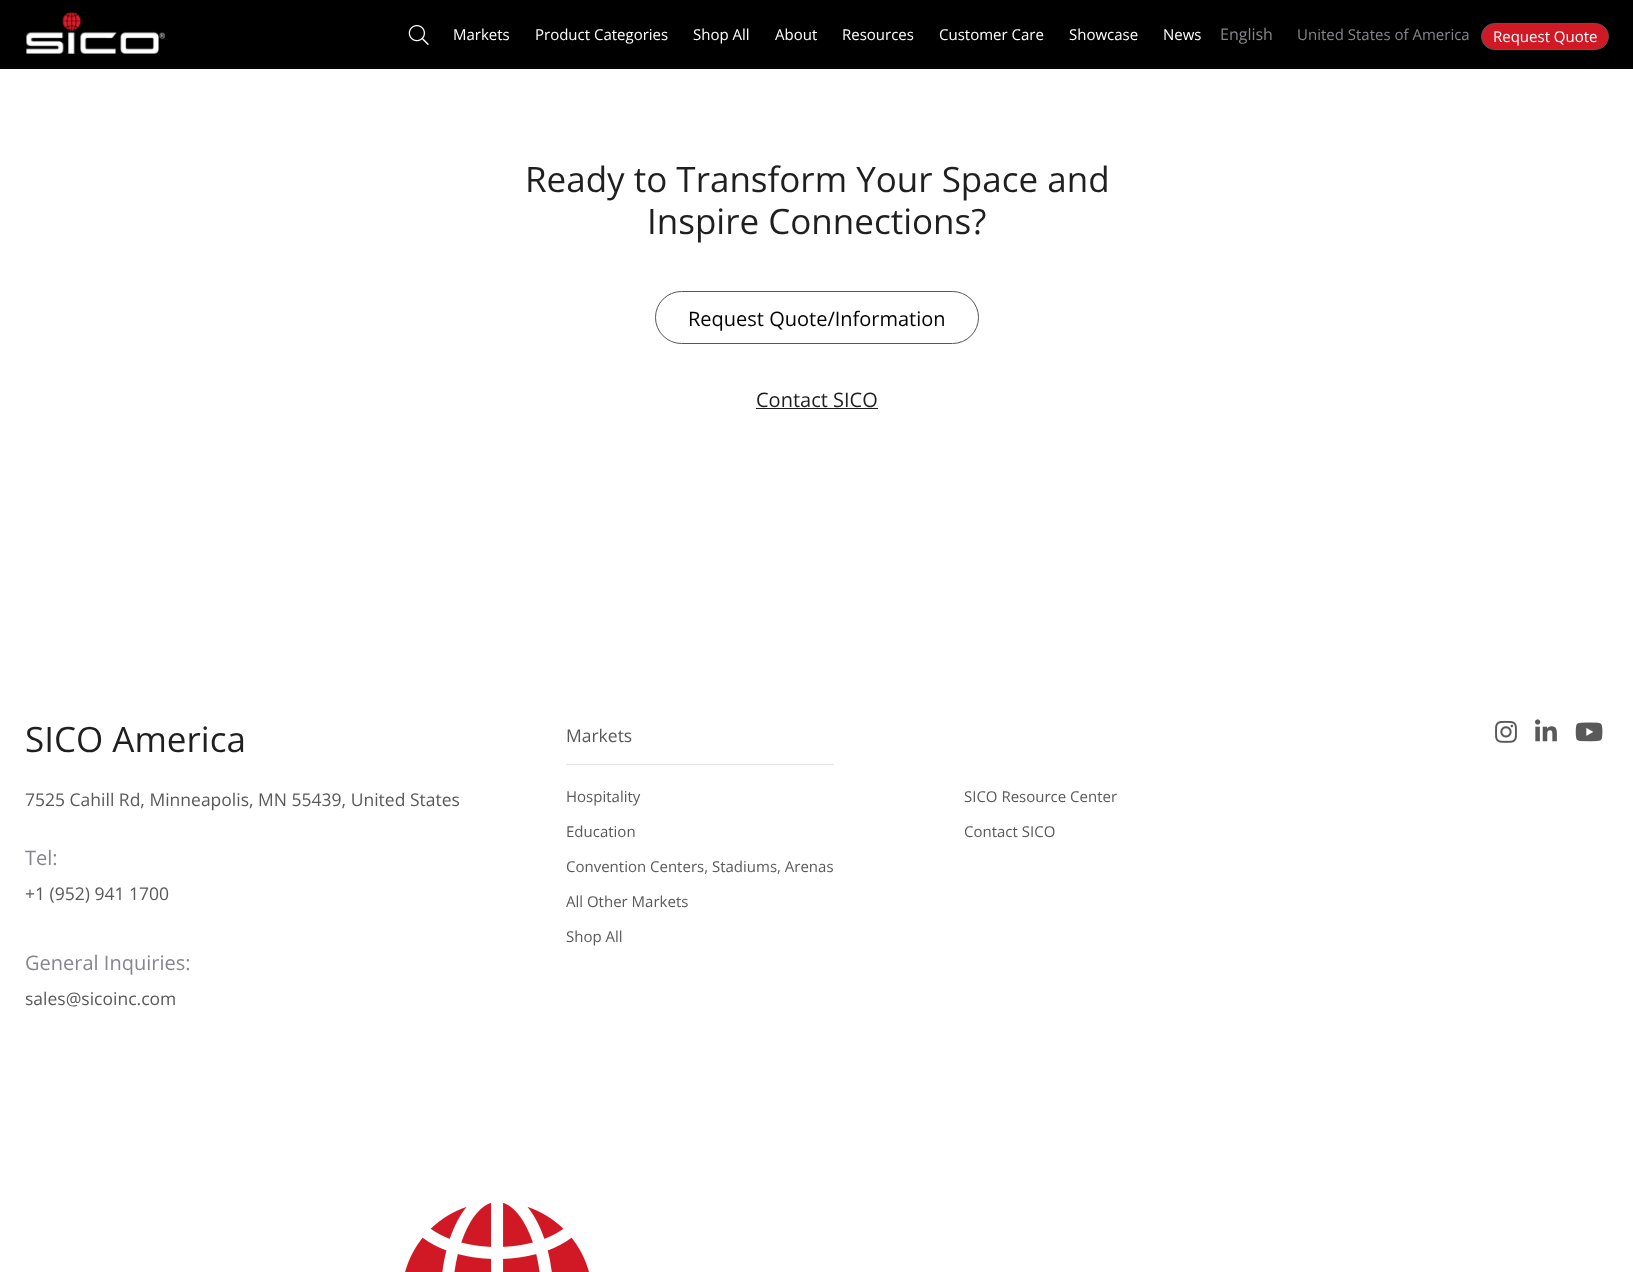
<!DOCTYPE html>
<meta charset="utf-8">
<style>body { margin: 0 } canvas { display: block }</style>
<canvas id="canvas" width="1633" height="1272"></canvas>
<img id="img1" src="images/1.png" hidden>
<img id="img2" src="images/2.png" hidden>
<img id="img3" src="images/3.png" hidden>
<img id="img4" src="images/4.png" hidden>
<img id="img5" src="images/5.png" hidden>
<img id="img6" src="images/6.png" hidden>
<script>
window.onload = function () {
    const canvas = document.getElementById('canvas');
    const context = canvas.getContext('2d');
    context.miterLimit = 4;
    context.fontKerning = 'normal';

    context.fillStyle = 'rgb(255, 255, 255)';
    context.fillRect(0, 0, 1633, 1272);
    context.fillStyle = 'rgb(0, 0, 0)';
    context.fillRect(0, 0, 1633, 69);
    context.drawImage(document.getElementById('img1'), 26, 12, 139, 42);
    context.drawImage(document.getElementById('img2'), 408, 25, 21, 20);
    context.fillStyle = 'rgb(209, 25, 38)';
    context.beginPath();
    context.roundRect(1481.5, 23.5, 127, 26, 13);
    context.fill();
    context.strokeStyle = 'rgb(86, 86, 86)';
    context.stroke();
    context.beginPath();
    context.roundRect(655.5, 291.5, 323, 52, 26);
    context.stroke();
    context.fillStyle = 'rgb(31, 31, 31)';
    context.fillRect(756, 408, 122, 1);
    context.fillStyle = 'rgb(230, 230, 230)';
    context.fillRect(566, 764, 268, 1);
    context.drawImage(document.getElementById('img3'), 1495, 720, 22, 23);
    context.drawImage(document.getElementById('img4'), 1535, 719, 22, 23);
    context.drawImage(document.getElementById('img5'), 1575, 722, 28, 20);
    context.drawImage(document.getElementById('img6'), 405, 1203, 184, 69);
    context.font = '15px Open Sans';
    context.fillStyle = 'rgb(255, 255, 255)';
    context.fillText('Markets', 453, 40);
    context.fillText('Product Categories', 535, 40);
    context.fillText('Shop All', 693, 40);
    context.fillText('About', 775, 40);
    context.fillText('Resources', 842, 40);
    context.fillText('Customer Care', 939, 40);
    context.fillText('Showcase', 1069, 40);
    context.fillText('News', 1163, 40);
    context.font = '16px Open Sans';
    context.fillStyle = 'rgb(134, 134, 139)';
    context.fillText('English', 1220, 40);
    context.font = '15px Open Sans';
    context.fillText('United States of America', 1297, 40);
    context.fillStyle = 'rgb(255, 255, 255)';
    context.fillText('Request Quote', 1493, 42);
    context.font = '35px Open Sans';
    context.fillStyle = 'rgb(31, 31, 31)';
    context.fillText('Ready to Transform Your Space and', 525, 192);
    context.fillText('Inspire Connections?', 647, 234);
    context.font = '20px Open Sans';
    context.fillStyle = 'rgb(0, 0, 0)';
    context.fillText('Request Quote/Information', 688, 326);
    context.fillStyle = 'rgb(31, 31, 31)';
    context.fillText('Contact SICO', 756, 407);
    context.font = '35px Open Sans';
    context.fillText('SICO America', 25, 752);
    context.font = '17.5px Open Sans';
    context.fillStyle = 'rgb(89, 89, 89)';
    context.fillText('7525 Cahill Rd, Minneapolis, MN 55439, United States', 25, 806);
    context.font = '20px Open Sans';
    context.fillStyle = 'rgb(134, 134, 139)';
    context.fillText('Tel:', 25, 865);
    context.font = '17.5px Open Sans';
    context.fillStyle = 'rgb(89, 89, 89)';
    context.fillText('+1 (952) 941 1700', 25, 900);
    context.font = '20px Open Sans';
    context.fillStyle = 'rgb(134, 134, 139)';
    context.fillText('General Inquiries:', 25, 970);
    context.font = '17.5px Open Sans';
    context.fillStyle = 'rgb(89, 89, 89)';
    context.fillText('sales@sicoinc.com', 25, 1005);
    context.fillText('Markets', 566, 742);
    context.font = '15px Open Sans';
    context.fillText('Hospitality', 566, 802);
    context.fillText('Education', 566, 837);
    context.fillText('Convention Centers, Stadiums, Arenas', 566, 872);
    context.fillText('All Other Markets', 566, 907);
    context.fillText('Shop All', 566, 942);
    context.fillText('SICO Resource Center', 964, 802);
    context.fillText('Contact SICO', 964, 837);
};
</script>
